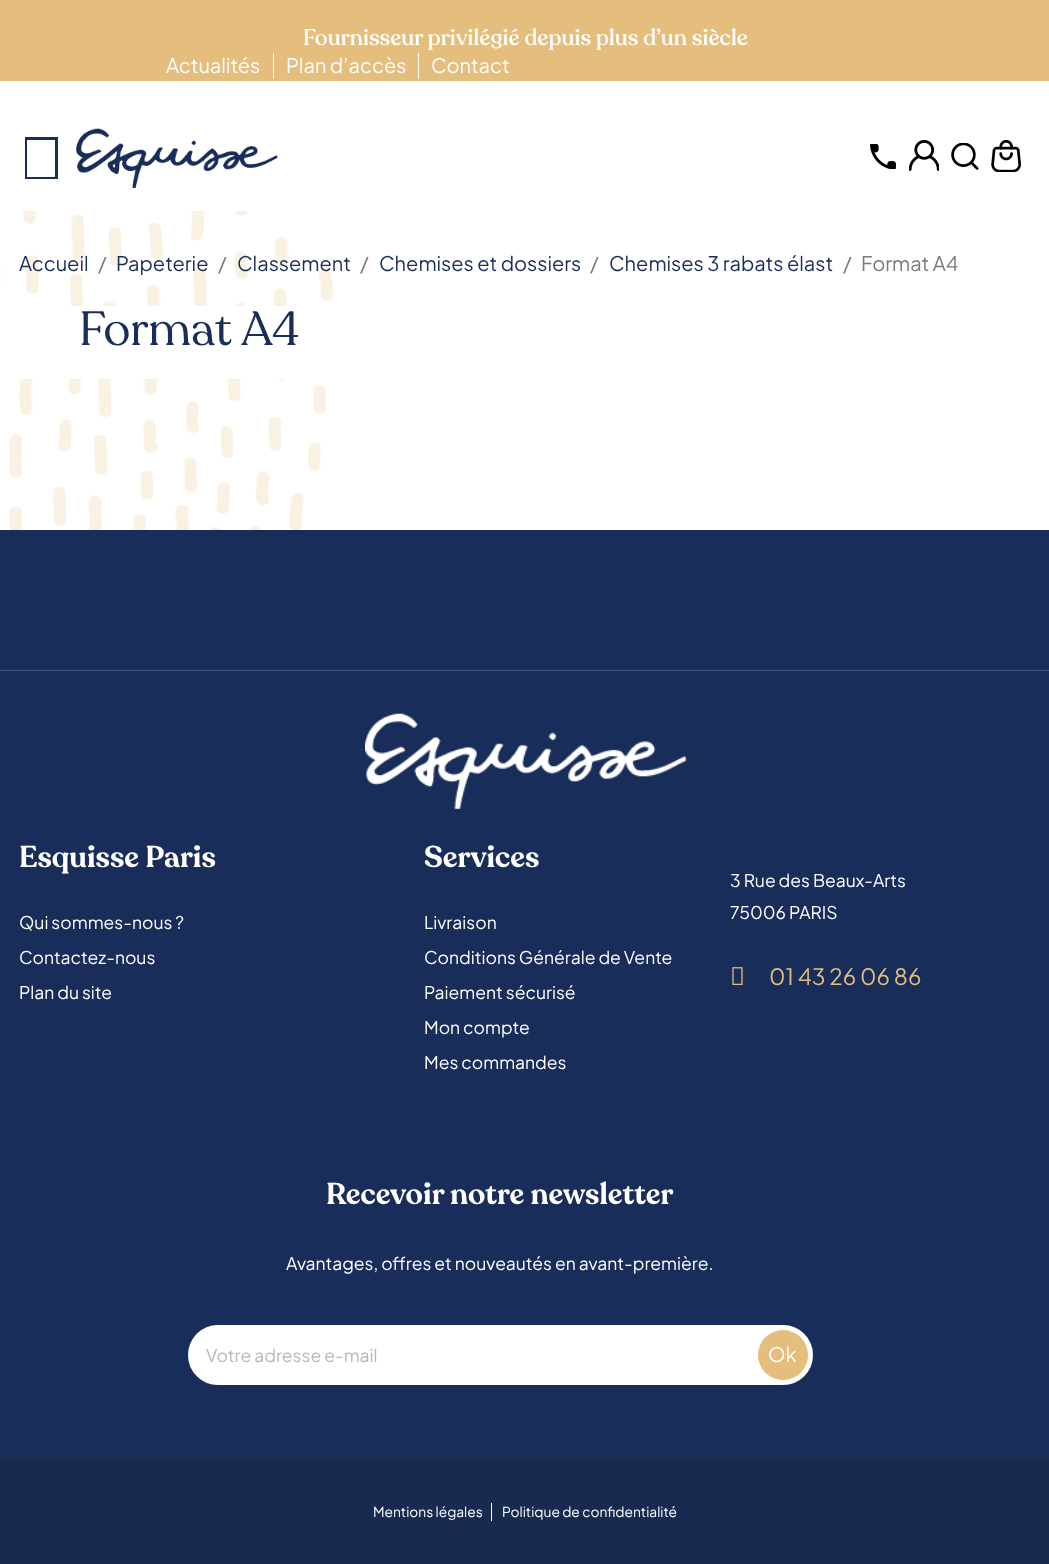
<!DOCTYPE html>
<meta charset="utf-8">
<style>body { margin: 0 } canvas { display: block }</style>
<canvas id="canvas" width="1049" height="1564"></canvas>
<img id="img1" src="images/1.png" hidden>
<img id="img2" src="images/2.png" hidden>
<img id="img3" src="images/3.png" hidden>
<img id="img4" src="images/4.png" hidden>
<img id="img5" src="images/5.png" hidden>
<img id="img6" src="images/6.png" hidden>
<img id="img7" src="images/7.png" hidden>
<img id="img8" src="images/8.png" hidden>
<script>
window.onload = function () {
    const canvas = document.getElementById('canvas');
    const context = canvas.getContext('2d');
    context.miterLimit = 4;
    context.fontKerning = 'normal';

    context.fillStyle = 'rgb(255, 255, 255)';
    context.fillRect(0, 0, 1049, 1564);
    context.fillStyle = 'rgb(229, 189, 124)';
    context.fillRect(0, 0, 1049, 81);
    context.fillStyle = 'rgb(255, 255, 255)';
    context.fillRect(273, 53, 1, 26);
    context.fillRect(418, 53, 1, 26);
    context.fillStyle = 'rgb(25, 45, 90)';
    context.beginPath();
    context.moveTo(25, 137);
    context.lineTo(58, 137);
    context.lineTo(58, 179);
    context.lineTo(25, 179);
    context.closePath();
    context.moveTo(27, 140);
    context.lineTo(27, 177);
    context.lineTo(55, 177);
    context.lineTo(55, 140);
    context.closePath();
    context.fill();
    context.drawImage(document.getElementById('img1'), 76, 128, 202, 61);
    context.drawImage(document.getElementById('img2'), 870, 144, 26, 25);
    context.drawImage(document.getElementById('img3'), 909, 140, 30, 31);
    context.drawImage(document.getElementById('img4'), 951, 143, 28, 27);
    context.drawImage(document.getElementById('img5'), 991, 140, 30, 32);
    context.drawImage(document.getElementById('img6'), 0, 211, 334, 319);
    context.fillStyle = 'rgb(255, 255, 255)';
    context.fillRect(20, 306, 313, 73);
    context.fillStyle = 'rgb(25, 45, 90)';
    context.fillRect(0, 530, 1049, 928);
    context.fillStyle = 'rgb(68, 85, 124)';
    context.fillRect(0, 670, 1049, 1);
    context.drawImage(document.getElementById('img7'), 365, 713, 322, 97);
    context.drawImage(document.getElementById('img8'), 732, 967, 11, 18);
    context.fillStyle = 'rgb(255, 255, 255)';
    context.beginPath();
    context.roundRect(190.5, 1327.5, 620, 55, 27.5);
    context.fill();
    context.strokeStyle = 'rgb(255, 255, 255)';
    context.lineWidth = 5;
    context.stroke();
    context.fillStyle = 'rgb(229, 189, 124)';
    context.beginPath();
    context.arc(783, 1355, 25, 0, 2 * Math.PI);
    context.fill();
    context.fillStyle = 'rgb(25, 42, 80)';
    context.fillRect(0, 1458, 1049, 106);
    context.fillStyle = 'rgb(255, 255, 255)';
    context.fillRect(491, 1503, 1, 18);
    context.font = '500 22.5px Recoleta';
    context.fillText('Fournisseur privilégié depuis plus d’un siècle', 303, 45);
    context.font = '20px Plus Jakarta Sans';
    context.fillText('Actualités', 166, 73);
    context.fillText('Plan d’accès', 286, 73);
    context.fillText('Contact', 431, 73);
    context.fillStyle = 'rgb(25, 45, 90)';
    context.fillText('Accueil', 19, 271);
    context.fillStyle = 'rgb(122, 122, 122)';
    context.fillText('/', 98, 271);
    context.fillStyle = 'rgb(25, 45, 90)';
    context.fillText('Papeterie', 116, 271);
    context.fillStyle = 'rgb(122, 122, 122)';
    context.fillText('/', 218, 271);
    context.fillStyle = 'rgb(25, 45, 90)';
    context.fillText('Classement', 237, 271);
    context.fillStyle = 'rgb(122, 122, 122)';
    context.fillText('/', 360, 271);
    context.fillStyle = 'rgb(25, 45, 90)';
    context.fillText('Chemises et dossiers', 379, 271);
    context.fillStyle = 'rgb(122, 122, 122)';
    context.fillText('/', 590, 271);
    context.fillStyle = 'rgb(25, 45, 90)';
    context.fillText('Chemises 3 rabats élast', 609, 271);
    context.fillStyle = 'rgb(122, 122, 122)';
    context.fillText('/', 843, 271);
    context.fillText('Format A4', 861, 271);
    context.font = '47.5px Recoleta';
    context.fillStyle = 'rgb(25, 45, 90)';
    context.fillText('Format A4', 79, 345);
    context.font = '600 30px Recoleta';
    context.fillStyle = 'rgb(255, 255, 255)';
    context.fillText('Esquisse Paris', 19, 867);
    context.font = '17.5px Plus Jakarta Sans';
    context.fillText('Qui sommes-nous ?', 19, 929);
    context.fillText('Contactez-nous', 19, 964);
    context.fillText('Plan du site', 19, 999);
    context.font = '600 30px Recoleta';
    context.fillText('Services', 424, 867);
    context.font = '17.5px Plus Jakarta Sans';
    context.fillText('Livraison', 424, 929);
    context.fillText('Conditions Générale de Vente', 424, 964);
    context.fillText('Paiement sécurisé', 424, 999);
    context.fillText('Mon compte', 424, 1034);
    context.fillText('Mes commandes', 424, 1069);
    context.fillText('3 Rue des Beaux-Arts', 730, 887);
    context.fillText('75006 PARIS', 730, 919);
    context.font = '22.5px Plus Jakarta Sans';
    context.fillStyle = 'rgb(229, 189, 124)';
    context.fillText('01 43 26 06 86', 769, 985);
    context.font = '600 30px Recoleta';
    context.fillStyle = 'rgb(255, 255, 255)';
    context.fillText('Recevoir notre newsletter', 326, 1204);
    context.font = '17.5px Plus Jakarta Sans';
    context.fillText('Avantages, offres et nouveautés en avant-première.', 286, 1270);
    context.fillStyle = 'rgb(183, 183, 183)';
    context.fillText('Votre adresse e-mail', 206, 1362);
    context.font = '20px Plus Jakarta Sans';
    context.fillStyle = 'rgb(255, 255, 255)';
    context.fillText('Ok', 768, 1362);
    context.font = '13.75px Plus Jakarta Sans';
    context.fillText('Mentions légales', 373, 1517);
    context.fillText('Politique de confidentialité', 502, 1517);
};
</script>
